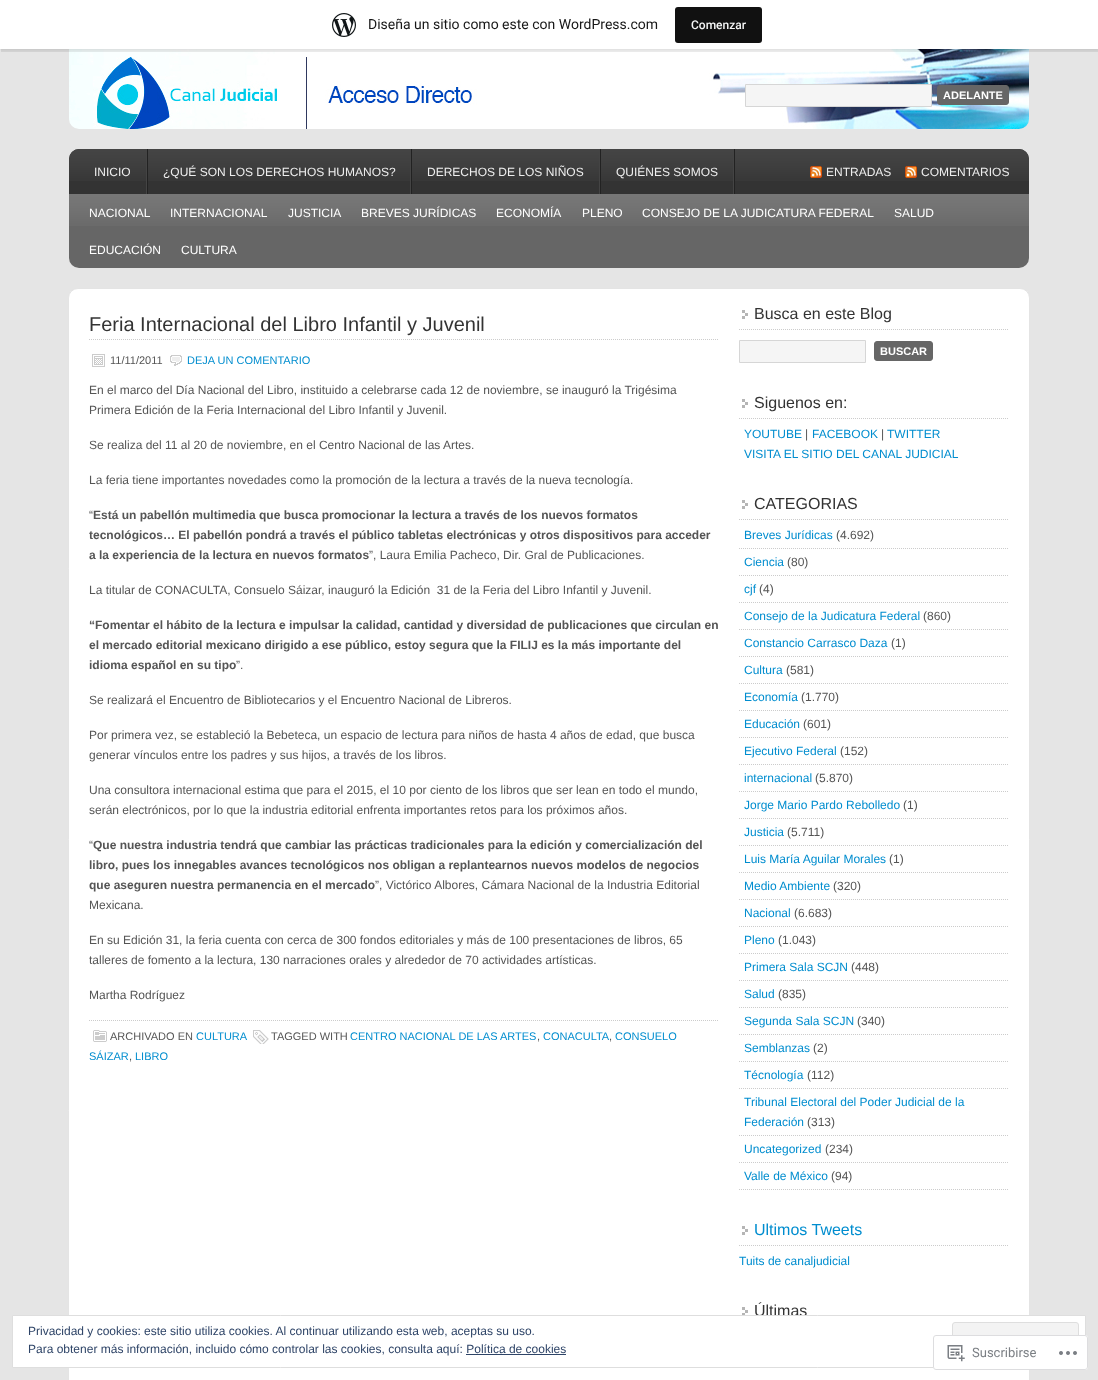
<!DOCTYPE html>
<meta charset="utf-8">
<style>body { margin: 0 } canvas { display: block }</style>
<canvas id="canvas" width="1098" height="1380"></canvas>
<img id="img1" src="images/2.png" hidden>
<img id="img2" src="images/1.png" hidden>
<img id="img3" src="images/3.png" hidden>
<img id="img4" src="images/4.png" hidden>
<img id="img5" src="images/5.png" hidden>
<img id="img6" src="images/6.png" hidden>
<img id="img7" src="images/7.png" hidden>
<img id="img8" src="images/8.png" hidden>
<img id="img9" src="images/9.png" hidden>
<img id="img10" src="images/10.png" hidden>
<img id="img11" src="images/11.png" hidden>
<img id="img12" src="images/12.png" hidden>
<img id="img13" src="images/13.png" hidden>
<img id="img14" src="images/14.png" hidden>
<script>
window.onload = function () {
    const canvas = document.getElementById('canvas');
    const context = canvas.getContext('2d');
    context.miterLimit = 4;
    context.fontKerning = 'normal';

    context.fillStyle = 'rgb(229, 229, 229)';
    context.fillRect(0, 0, 1098, 1380);
    context.drawImage(document.getElementById('img1'), 69, 49, 960, 80);
    context.fillStyle = 'rgba(0, 0, 0, 0.05)';
    context.filter = 'blur(1px)';
    context.beginPath();
    context.rect(0, 1, 1098, 49);
    context.fill();
    context.filter = 'none';
    context.fillStyle = 'rgba(0, 0, 0, 0.08)';
    context.beginPath();
    context.moveTo(1, 49);
    context.lineTo(1, 52);
    context.lineTo(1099, 52);
    context.lineTo(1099, 3);
    context.lineTo(1098, 3);
    context.lineTo(1098, 49);
    context.closePath();
    context.fill();
    context.fillStyle = 'rgb(255, 255, 255)';
    context.fillRect(0, 0, 1098, 49);
    context.drawImage(document.getElementById('img2'), 332, 13, 24, 24);
    context.fillStyle = 'rgb(17, 17, 17)';
    context.beginPath();
    context.roundRect(675, 7, 87, 36, 3);
    context.fill();
    context.fillStyle = 'rgb(245, 245, 245)';
    context.beginPath();
    context.rect(745.5, 84.5, 186, 22);
    context.fill();
    context.strokeStyle = 'rgb(214, 214, 214)';
    context.stroke();
    context.fillStyle = 'rgb(102, 102, 102)';
    context.beginPath();
    context.roundRect(937.5, 85.5, 71, 19, 2.5);
    context.fill();
    context.strokeStyle = 'rgb(102, 102, 102)';
    context.stroke();
    context.fillStyle = 'rgb(51, 51, 51)';
    context.beginPath();
    context.roundRect(69, 149, 960, 45, [10, 10, 0, 0]);
    context.fill();
    context.drawImage(document.getElementById('img3'), 69, 149, 960, 32);
    context.drawImage(document.getElementById('img4'), 146, 149, 2, 45);
    context.drawImage(document.getElementById('img4'), 410, 149, 2, 45);
    context.drawImage(document.getElementById('img4'), 599, 149, 2, 45);
    context.drawImage(document.getElementById('img4'), 733, 149, 2, 45);
    context.drawImage(document.getElementById('img5'), 810, 166, 12, 12);
    context.drawImage(document.getElementById('img5'), 905, 166, 12, 12);
    context.fillStyle = 'rgb(102, 102, 102)';
    context.beginPath();
    context.roundRect(69, 194, 960, 74, [0, 0, 10, 10]);
    context.fill();
    context.drawImage(document.getElementById('img6'), 69, 194, 960, 32);
    context.fillStyle = 'rgb(255, 255, 255)';
    context.beginPath();
    context.roundRect(68.5, 288.5, 961, 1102, 9.5);
    context.fill();
    context.strokeStyle = 'rgb(228, 228, 228)';
    context.stroke();
    context.beginPath();
    context.moveTo(89, 339.5);
    context.lineTo(719, 339.5);
    context.strokeStyle = 'rgb(204, 204, 204)';
    context.setLineDash([1, 1]);
    context.stroke();
    context.drawImage(document.getElementById('img7'), 92, 354, 13, 13);
    context.drawImage(document.getElementById('img8'), 170, 355, 12, 11);
    context.beginPath();
    context.moveTo(89, 1020.5);
    context.lineTo(719, 1020.5);
    context.stroke();
    context.drawImage(document.getElementById('img9'), 93, 1030, 14, 12);
    context.drawImage(document.getElementById('img10'), 253, 1030, 16, 14);
    context.drawImage(document.getElementById('img11'), 742, 310, 6, 9);
    context.beginPath();
    context.moveTo(739, 329.5);
    context.lineTo(1009, 329.5);
    context.stroke();
    context.fillStyle = 'rgb(245, 245, 245)';
    context.beginPath();
    context.rect(739.5, 340.5, 126, 22);
    context.fill();
    context.strokeStyle = 'rgb(214, 214, 214)';
    context.setLineDash([]);
    context.stroke();
    context.fillStyle = 'rgb(102, 102, 102)';
    context.beginPath();
    context.roundRect(874.5, 341.5, 58, 19, 2.5);
    context.fill();
    context.strokeStyle = 'rgb(102, 102, 102)';
    context.stroke();
    context.drawImage(document.getElementById('img11'), 742, 399, 6, 9);
    context.beginPath();
    context.moveTo(739, 418.5);
    context.lineTo(1009, 418.5);
    context.strokeStyle = 'rgb(204, 204, 204)';
    context.setLineDash([1, 1]);
    context.stroke();
    context.drawImage(document.getElementById('img11'), 742, 500, 6, 9);
    context.beginPath();
    context.moveTo(739, 519.5);
    context.lineTo(1009, 519.5);
    context.stroke();
    context.beginPath();
    context.moveTo(739, 548.5);
    context.lineTo(1009, 548.5);
    context.stroke();
    context.beginPath();
    context.moveTo(739, 575.5);
    context.lineTo(1009, 575.5);
    context.stroke();
    context.beginPath();
    context.moveTo(739, 602.5);
    context.lineTo(1009, 602.5);
    context.stroke();
    context.beginPath();
    context.moveTo(739, 629.5);
    context.lineTo(1009, 629.5);
    context.stroke();
    context.beginPath();
    context.moveTo(739, 656.5);
    context.lineTo(1009, 656.5);
    context.stroke();
    context.beginPath();
    context.moveTo(739, 683.5);
    context.lineTo(1009, 683.5);
    context.stroke();
    context.beginPath();
    context.moveTo(739, 710.5);
    context.lineTo(1009, 710.5);
    context.stroke();
    context.beginPath();
    context.moveTo(739, 737.5);
    context.lineTo(1009, 737.5);
    context.stroke();
    context.beginPath();
    context.moveTo(739, 764.5);
    context.lineTo(1009, 764.5);
    context.stroke();
    context.beginPath();
    context.moveTo(739, 791.5);
    context.lineTo(1009, 791.5);
    context.stroke();
    context.beginPath();
    context.moveTo(739, 818.5);
    context.lineTo(1009, 818.5);
    context.stroke();
    context.beginPath();
    context.moveTo(739, 845.5);
    context.lineTo(1009, 845.5);
    context.stroke();
    context.beginPath();
    context.moveTo(739, 872.5);
    context.lineTo(1009, 872.5);
    context.stroke();
    context.beginPath();
    context.moveTo(739, 899.5);
    context.lineTo(1009, 899.5);
    context.stroke();
    context.beginPath();
    context.moveTo(739, 926.5);
    context.lineTo(1009, 926.5);
    context.stroke();
    context.beginPath();
    context.moveTo(739, 953.5);
    context.lineTo(1009, 953.5);
    context.stroke();
    context.beginPath();
    context.moveTo(739, 980.5);
    context.lineTo(1009, 980.5);
    context.stroke();
    context.beginPath();
    context.moveTo(739, 1007.5);
    context.lineTo(1009, 1007.5);
    context.stroke();
    context.beginPath();
    context.moveTo(739, 1034.5);
    context.lineTo(1009, 1034.5);
    context.stroke();
    context.beginPath();
    context.moveTo(739, 1061.5);
    context.lineTo(1009, 1061.5);
    context.stroke();
    context.beginPath();
    context.moveTo(739, 1088.5);
    context.lineTo(1009, 1088.5);
    context.stroke();
    context.beginPath();
    context.moveTo(739, 1135.5);
    context.lineTo(1009, 1135.5);
    context.stroke();
    context.beginPath();
    context.moveTo(739, 1162.5);
    context.lineTo(1009, 1162.5);
    context.stroke();
    context.beginPath();
    context.moveTo(739, 1189.5);
    context.lineTo(1009, 1189.5);
    context.stroke();
    context.drawImage(document.getElementById('img11'), 742, 1226, 6, 9);
    context.beginPath();
    context.moveTo(739, 1245.5);
    context.lineTo(1009, 1245.5);
    context.stroke();
    context.drawImage(document.getElementById('img12'), 742, 1307, 6, 8);
    context.font = '14px Roboto';
    context.fillStyle = 'rgb(23, 23, 23)';
    context.fillText('Diseña un sitio como este con WordPress.com', 368, 29);
    context.font = '500 12px Roboto';
    context.fillStyle = 'rgb(246, 247, 247)';
    context.fillText('Comenzar', 691, 29);
    context.font = 'bold 11px Liberation Sans';
    context.fillStyle = 'rgb(255, 255, 255)';
    context.fillText('ADELANTE', 943, 99);
    context.font = '12px Liberation Sans';
    context.fillStyle = 'rgb(238, 238, 238)';
    context.fillText('INICIO', 94, 176);
    context.fillText('¿QUÉ SON LOS DERECHOS HUMANOS?', 163, 176);
    context.fillText('DERECHOS DE LOS NIÑOS', 427, 176);
    context.fillText('QUIÉNES SOMOS', 616, 176);
    context.fillText('ENTRADAS', 826, 176);
    context.fillText('COMENTARIOS', 921, 176);
    context.fillStyle = 'rgb(255, 255, 255)';
    context.fillText('NACIONAL', 89, 217);
    context.fillText('INTERNACIONAL', 170, 217);
    context.fillText('JUSTICIA', 288, 217);
    context.fillText('BREVES JURÍDICAS', 361, 217);
    context.fillText('ECONOMÍA', 496, 217);
    context.fillText('PLENO', 582, 217);
    context.fillText('CONSEJO DE LA JUDICATURA FEDERAL', 642, 217);
    context.fillText('SALUD', 894, 217);
    context.fillText('EDUCACIÓN', 89, 254);
    context.fillText('CULTURA', 181, 254);
    context.font = '20px Liberation Sans';
    context.fillStyle = 'rgb(51, 51, 51)';
    context.fillText('Feria Internacional del Libro Infantil y Juvenil', 89, 331);
    context.font = '11px Liberation Sans';
    context.fillStyle = 'rgb(85, 85, 85)';
    context.fillText('11/11/2011', 110, 364);
    context.fillStyle = 'rgb(0, 141, 207)';
    context.fillText('DEJA UN COMENTARIO', 187, 364);
    context.font = '12px Liberation Sans';
    context.fillStyle = 'rgb(85, 85, 85)';
    context.fillText('En el marco del Día Nacional del Libro, instituido a celebrarse cada 12 de noviembre, se inauguró la Trigésima', 89, 394);
    context.fillText('Primera Edición de la Feria Internacional del Libro Infantil y Juvenil.', 89, 414);
    context.fillText('Se realiza del 11 al 20 de noviembre, en el Centro Nacional de las Artes.', 89, 449);
    context.fillText('La feria tiene importantes novedades como la promoción de la lectura a través de la nueva tecnología.', 89, 484);
    context.fillText('“', 89, 519);
    context.font = 'bold 12px Liberation Sans';
    context.fillText('Está un pabellón multimedia que busca promocionar la lectura a través de los nuevos formatos', 93, 519);
    context.fillText('tecnológicos… El pabellón pondrá a través el público tabletas electrónicas y otros dispositivos para acceder', 89, 539);
    context.fillText('a la experiencia de la lectura en nuevos formatos', 89, 559);
    context.font = '12px Liberation Sans';
    context.fillText('”, Laura Emilia Pacheco, Dir. Gral de Publicaciones.', 369, 559);
    context.fillText('La titular de CONACULTA, Consuelo Sáizar, inauguró la Edición  31 de la Feria del Libro Infantil y Juvenil.', 89, 594);
    context.font = 'bold 12px Liberation Sans';
    context.fillText('“Fomentar el hábito de la lectura e impulsar la calidad, cantidad y diversidad de publicaciones que circulan en', 89, 629);
    context.fillText('el mercado editorial mexicano dirigido a ese público, estoy segura que la FILIJ es la más importante del', 89, 649);
    context.fillText('idioma español en su tipo', 89, 669);
    context.font = '12px Liberation Sans';
    context.fillText('”.', 236, 669);
    context.fillText('Se realizará el Encuentro de Bibliotecarios y el Encuentro Nacional de Libreros.', 89, 704);
    context.fillText('Por primera vez, se estableció la Bebeteca, un espacio de lectura para niños de hasta 4 años de edad, que busca', 89, 739);
    context.fillText('generar vínculos entre los padres y sus hijos, a través de los libros.', 89, 759);
    context.fillText('Una consultora internacional estima que para el 2015, el 10 por ciento de los libros que ser lean en todo el mundo,', 89, 794);
    context.fillText('serán electrónicos, por lo que la industria editorial enfrenta importantes retos para los próximos años.', 89, 814);
    context.fillText('“', 89, 849);
    context.font = 'bold 12px Liberation Sans';
    context.fillText('Que nuestra industria tendrá que cambiar las prácticas tradicionales para la edición y comercialización del', 93, 849);
    context.fillText('libro, pues los innegables avances tecnológicos nos obligan a replantearnos nuevos modelos de negocios', 89, 869);
    context.fillText('que aseguren nuestra permanencia en el mercado', 89, 889);
    context.font = '12px Liberation Sans';
    context.fillText('”, Victórico Albores, Cámara Nacional de la Industria Editorial', 375, 889);
    context.fillText('Mexicana.', 89, 909);
    context.fillText('En su Edición 31, la feria cuenta con cerca de 300 fondos editoriales y más de 100 presentaciones de libros, 65', 89, 944);
    context.fillText('talleres de fomento a la lectura, 130 narraciones orales y alrededor de 70 actividades artísticas.', 89, 964);
    context.fillText('Martha Rodríguez', 89, 999);
    context.font = '11px Liberation Sans';
    context.fillText('ARCHIVADO EN', 110, 1040);
    context.fillStyle = 'rgb(0, 141, 207)';
    context.fillText('CULTURA', 196, 1040);
    context.fillStyle = 'rgb(85, 85, 85)';
    context.fillText('TAGGED WITH', 271, 1040);
    context.fillStyle = 'rgb(0, 141, 207)';
    context.fillText('CENTRO NACIONAL DE LAS ARTES', 350, 1040);
    context.fillStyle = 'rgb(85, 85, 85)';
    context.fillText(',', 537, 1040);
    context.fillStyle = 'rgb(0, 141, 207)';
    context.fillText('CONACULTA', 543, 1040);
    context.fillStyle = 'rgb(85, 85, 85)';
    context.fillText(',', 609, 1040);
    context.fillStyle = 'rgb(0, 141, 207)';
    context.fillText('CONSUELO', 615, 1040);
    context.fillText('SÁIZAR', 89, 1060);
    context.fillStyle = 'rgb(85, 85, 85)';
    context.fillText(',', 129, 1060);
    context.fillStyle = 'rgb(0, 141, 207)';
    context.fillText('LIBRO', 135, 1060);
    context.font = '16px Liberation Sans';
    context.fillStyle = 'rgb(51, 51, 51)';
    context.fillText('Busca en este Blog', 754, 319);
    context.font = 'bold 11px Liberation Sans';
    context.fillStyle = 'rgb(255, 255, 255)';
    context.fillText('BUSCAR', 880, 355);
    context.font = '16px Liberation Sans';
    context.fillStyle = 'rgb(51, 51, 51)';
    context.fillText('Siguenos en:', 754, 408);
    context.font = '12px Liberation Sans';
    context.fillStyle = 'rgb(0, 141, 207)';
    context.fillText('YOUTUBE', 744, 438);
    context.fillStyle = 'rgb(85, 85, 85)';
    context.fillText('|', 805, 438);
    context.fillStyle = 'rgb(0, 141, 207)';
    context.fillText('FACEBOOK', 812, 438);
    context.fillStyle = 'rgb(85, 85, 85)';
    context.fillText('|', 881, 438);
    context.fillStyle = 'rgb(0, 141, 207)';
    context.fillText('TWITTER', 887, 438);
    context.fillText('VISITA EL SITIO DEL CANAL JUDICIAL', 744, 458);
    context.font = '16px Liberation Sans';
    context.fillStyle = 'rgb(51, 51, 51)';
    context.fillText('CATEGORIAS', 754, 509);
    context.font = '12px Liberation Sans';
    context.fillStyle = 'rgb(0, 141, 207)';
    context.fillText('Breves Jurídicas', 744, 539);
    context.fillStyle = 'rgb(85, 85, 85)';
    context.fillText('(4.692)', 836, 539);
    context.fillStyle = 'rgb(0, 141, 207)';
    context.fillText('Ciencia', 744, 566);
    context.fillStyle = 'rgb(85, 85, 85)';
    context.fillText('(80)', 787, 566);
    context.fillStyle = 'rgb(0, 141, 207)';
    context.fillText('cjf', 744, 593);
    context.fillStyle = 'rgb(85, 85, 85)';
    context.fillText('(4)', 759, 593);
    context.fillStyle = 'rgb(0, 141, 207)';
    context.fillText('Consejo de la Judicatura Federal', 744, 620);
    context.fillStyle = 'rgb(85, 85, 85)';
    context.fillText('(860)', 923, 620);
    context.fillStyle = 'rgb(0, 141, 207)';
    context.fillText('Constancio Carrasco Daza', 744, 647);
    context.fillStyle = 'rgb(85, 85, 85)';
    context.fillText('(1)', 891, 647);
    context.fillStyle = 'rgb(0, 141, 207)';
    context.fillText('Cultura', 744, 674);
    context.fillStyle = 'rgb(85, 85, 85)';
    context.fillText('(581)', 786, 674);
    context.fillStyle = 'rgb(0, 141, 207)';
    context.fillText('Economía', 744, 701);
    context.fillStyle = 'rgb(85, 85, 85)';
    context.fillText('(1.770)', 801, 701);
    context.fillStyle = 'rgb(0, 141, 207)';
    context.fillText('Educación', 744, 728);
    context.fillStyle = 'rgb(85, 85, 85)';
    context.fillText('(601)', 803, 728);
    context.fillStyle = 'rgb(0, 141, 207)';
    context.fillText('Ejecutivo Federal', 744, 755);
    context.fillStyle = 'rgb(85, 85, 85)';
    context.fillText('(152)', 840, 755);
    context.fillStyle = 'rgb(0, 141, 207)';
    context.fillText('internacional', 744, 782);
    context.fillStyle = 'rgb(85, 85, 85)';
    context.fillText('(5.870)', 815, 782);
    context.fillStyle = 'rgb(0, 141, 207)';
    context.fillText('Jorge Mario Pardo Rebolledo', 744, 809);
    context.fillStyle = 'rgb(85, 85, 85)';
    context.fillText('(1)', 903, 809);
    context.fillStyle = 'rgb(0, 141, 207)';
    context.fillText('Justicia', 744, 836);
    context.fillStyle = 'rgb(85, 85, 85)';
    context.fillText('(5.711)', 787, 836);
    context.fillStyle = 'rgb(0, 141, 207)';
    context.fillText('Luis María Aguilar Morales', 744, 863);
    context.fillStyle = 'rgb(85, 85, 85)';
    context.fillText('(1)', 889, 863);
    context.fillStyle = 'rgb(0, 141, 207)';
    context.fillText('Medio Ambiente', 744, 890);
    context.fillStyle = 'rgb(85, 85, 85)';
    context.fillText('(320)', 833, 890);
    context.fillStyle = 'rgb(0, 141, 207)';
    context.fillText('Nacional', 744, 917);
    context.fillStyle = 'rgb(85, 85, 85)';
    context.fillText('(6.683)', 794, 917);
    context.fillStyle = 'rgb(0, 141, 207)';
    context.fillText('Pleno', 744, 944);
    context.fillStyle = 'rgb(85, 85, 85)';
    context.fillText('(1.043)', 778, 944);
    context.fillStyle = 'rgb(0, 141, 207)';
    context.fillText('Primera Sala SCJN', 744, 971);
    context.fillStyle = 'rgb(85, 85, 85)';
    context.fillText('(448)', 851, 971);
    context.fillStyle = 'rgb(0, 141, 207)';
    context.fillText('Salud', 744, 998);
    context.fillStyle = 'rgb(85, 85, 85)';
    context.fillText('(835)', 778, 998);
    context.fillStyle = 'rgb(0, 141, 207)';
    context.fillText('Segunda Sala SCJN', 744, 1025);
    context.fillStyle = 'rgb(85, 85, 85)';
    context.fillText('(340)', 857, 1025);
    context.fillStyle = 'rgb(0, 141, 207)';
    context.fillText('Semblanzas', 744, 1052);
    context.fillStyle = 'rgb(85, 85, 85)';
    context.fillText('(2)', 813, 1052);
    context.fillStyle = 'rgb(0, 141, 207)';
    context.fillText('Técnología', 744, 1079);
    context.fillStyle = 'rgb(85, 85, 85)';
    context.fillText('(112)', 807, 1079);
    context.fillStyle = 'rgb(0, 141, 207)';
    context.fillText('Tribunal Electoral del Poder Judicial de la', 744, 1106);
    context.fillText('Federación', 744, 1126);
    context.fillStyle = 'rgb(85, 85, 85)';
    context.fillText('(313)', 807, 1126);
    context.fillStyle = 'rgb(0, 141, 207)';
    context.fillText('Uncategorized', 744, 1153);
    context.fillStyle = 'rgb(85, 85, 85)';
    context.fillText('(234)', 825, 1153);
    context.fillStyle = 'rgb(0, 141, 207)';
    context.fillText('Valle de México', 744, 1180);
    context.fillStyle = 'rgb(85, 85, 85)';
    context.fillText('(94)', 831, 1180);
    context.font = '16px Liberation Sans';
    context.fillStyle = 'rgb(0, 141, 207)';
    context.fillText('Ultimos Tweets', 754, 1235);
    context.font = '12px Liberation Sans';
    context.fillText('Tuits de canaljudicial', 739, 1265);
    context.font = '16px Liberation Sans';
    context.fillStyle = 'rgb(51, 51, 51)';
    context.fillText('Últimas', 754, 1316);
    context.fillStyle = 'rgb(255, 255, 255)';
    context.beginPath();
    context.rect(12.5, 1315.5, 1073, 52);
    context.fill();
    context.strokeStyle = 'rgb(222, 222, 222)';
    context.setLineDash([]);
    context.stroke();
    context.font = '12px Liberation Sans';
    context.fillStyle = 'rgb(46, 68, 103)';
    context.fillText('Privacidad y cookies: este sitio utiliza cookies. Al continuar utilizando esta web, aceptas su uso.', 28, 1335);
    context.fillStyle = 'rgb(243, 243, 243)';
    context.beginPath();
    context.roundRect(952.5, 1322.5, 126, 38, 2.5);
    context.fill();
    context.stroke();
    context.fillStyle = 'rgb(46, 68, 103)';
    context.fillText('Para obtener más información, incluido cómo controlar las cookies, consulta aquí: Política de cookies', 28, 1353);
    context.fillRect(466, 1354, 100, 1);
    context.fillStyle = 'rgba(255, 255, 255, 0.98)';
    context.beginPath();
    context.roundRect(933, 1335, 155, 35, 3);
    context.fill();
    context.beginPath();
    context.roundRect(933.5, 1335.5, 154, 34, 2.5);
    context.strokeStyle = 'rgba(220, 220, 222, 0.98)';
    context.stroke();
    context.drawImage(document.getElementById('img13'), 947, 1345, 18, 17);
    context.font = '13px Roboto';
    context.fillStyle = 'rgb(123, 127, 132)';
    context.fillText('Suscribirse', 972, 1357);
    context.drawImage(document.getElementById('img14'), 1059, 1351, 18, 4);
};
</script>
